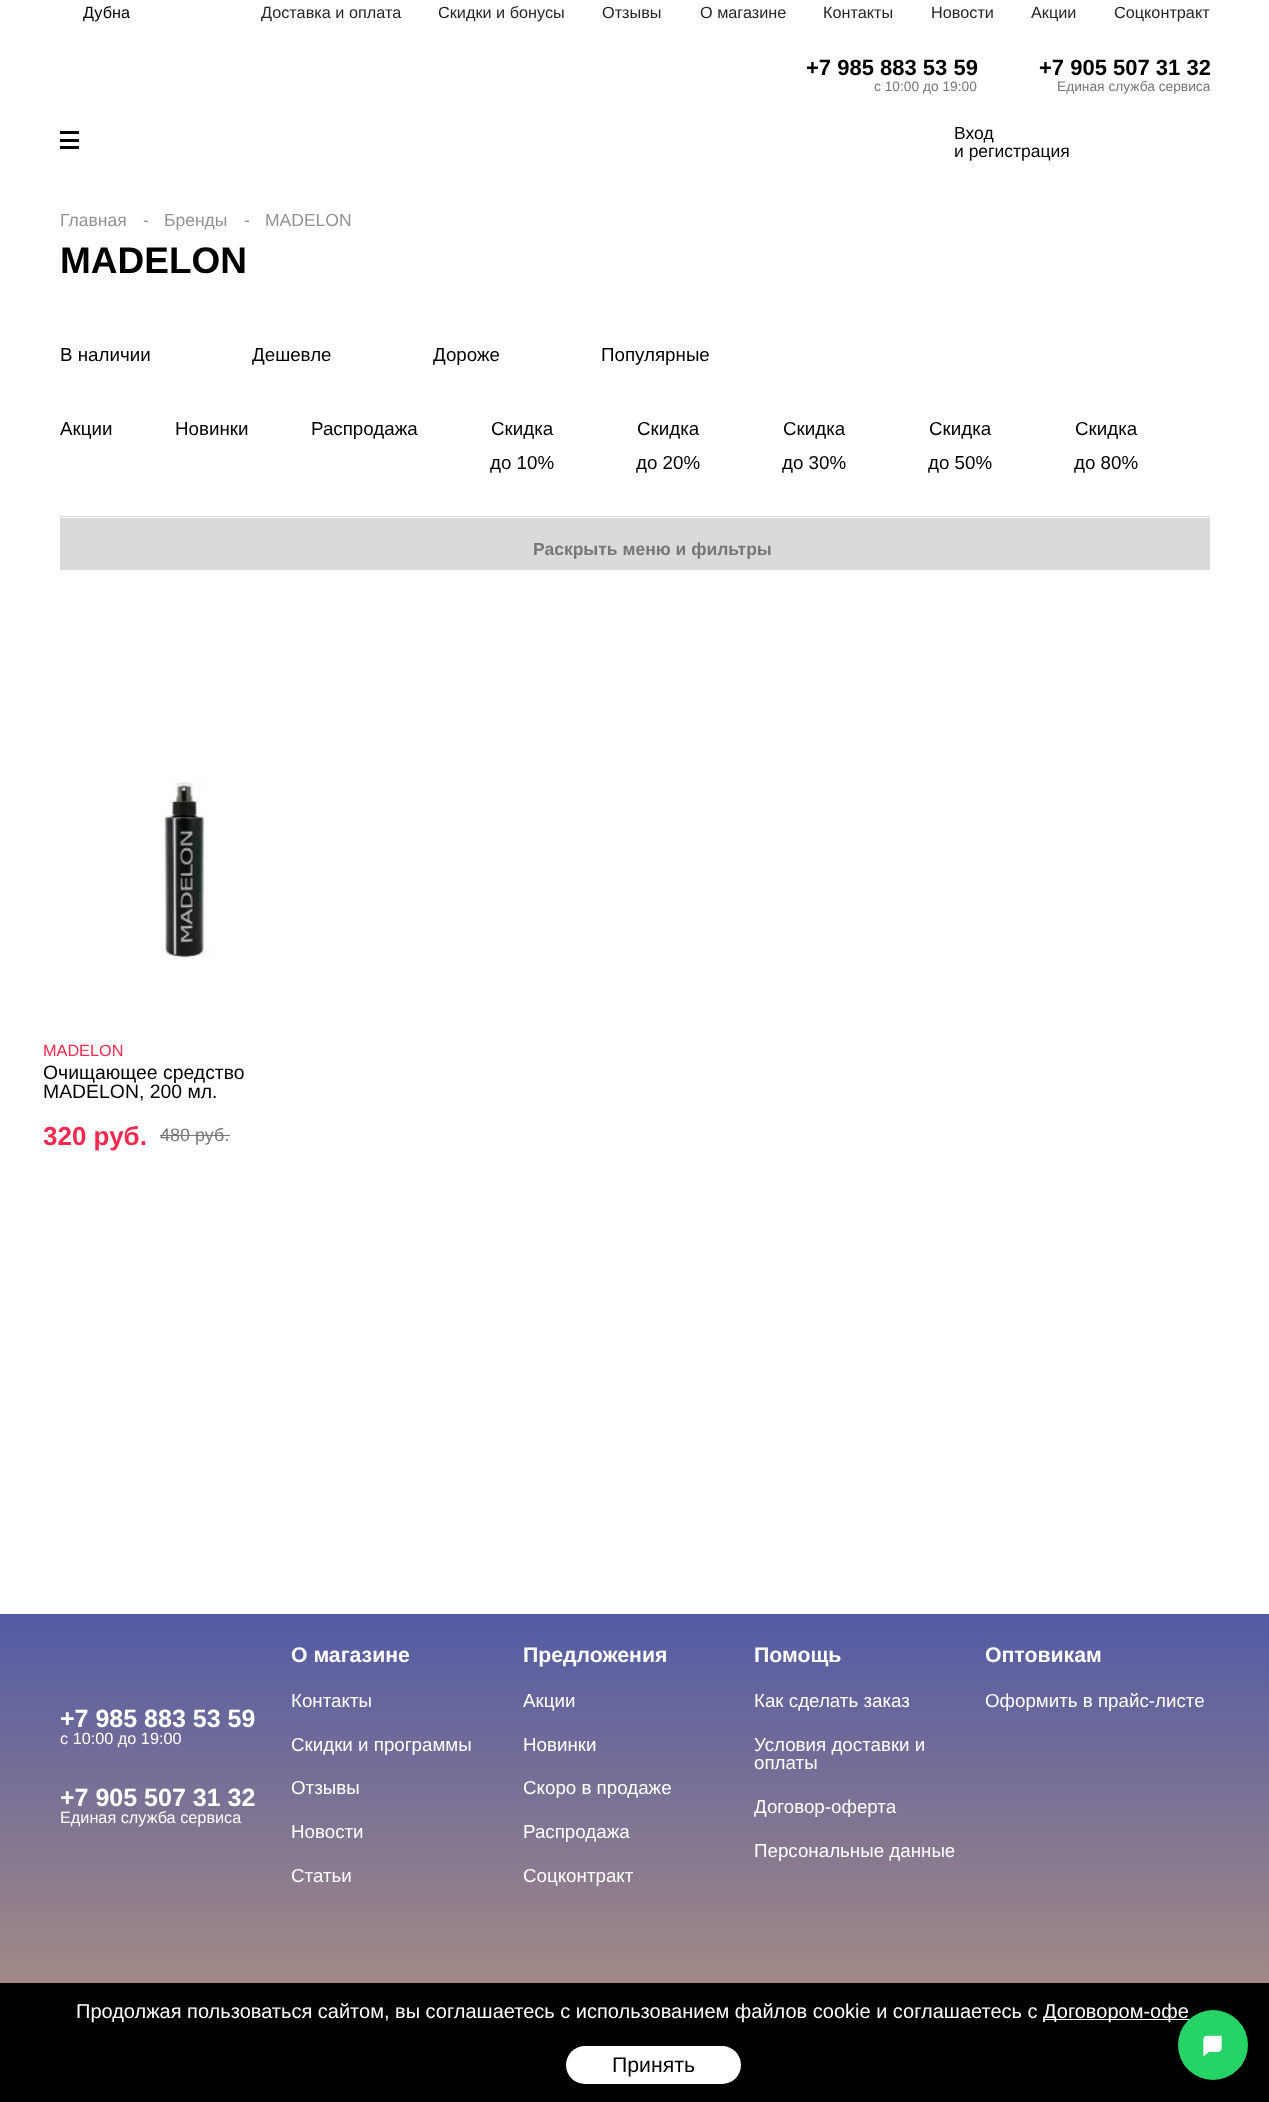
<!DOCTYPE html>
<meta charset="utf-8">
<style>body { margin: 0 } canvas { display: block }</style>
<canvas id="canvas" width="1269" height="2102"></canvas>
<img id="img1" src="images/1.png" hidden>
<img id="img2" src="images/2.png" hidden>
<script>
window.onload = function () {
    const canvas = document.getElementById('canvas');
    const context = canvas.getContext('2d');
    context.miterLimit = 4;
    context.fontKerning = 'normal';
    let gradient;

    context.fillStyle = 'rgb(255, 255, 255)';
    context.fillRect(0, 0, 1269, 2102);
    context.fillStyle = 'rgb(0, 0, 0)';
    context.fillRect(60, 131, 19, 3);
    context.fillRect(60, 139, 19, 3);
    context.fillRect(60, 146, 19, 3);
    context.strokeStyle = 'rgb(217, 218, 218)';
    context.strokeRect(60.5, 516.5, 1149, 53);
    context.fillStyle = 'rgb(217, 218, 218)';
    context.fillRect(61, 518, 1148, 51);
    context.drawImage(document.getElementById('img1'), 160, 777, 50, 181);
    context.fillStyle = 'rgb(119, 119, 119)';
    context.fillRect(160, 1135, 70, 1);
    gradient = context.createLinearGradient(635, 1614, 635, 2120);
    gradient.addColorStop(0, 'rgb(83, 91, 165)');
    gradient.addColorStop(1, 'rgb(191, 154, 120)');
    context.fillStyle = gradient;
    context.fillRect(0, 1614, 1269, 369);
    context.fillStyle = 'rgb(0, 0, 0)';
    context.fillRect(0, 1983, 1269, 119);
    context.fillStyle = 'rgb(255, 255, 255)';
    context.fillRect(1044, 2019, 146, 1);
    context.beginPath();
    context.roundRect(566, 2046, 175, 38, 19);
    context.fill();
    context.fillStyle = 'rgba(0, 0, 0, 0.25)';
    context.filter = 'blur(19px)';
    context.beginPath();
    context.roundRect(1178, 2023, 70, 70, 35);
    context.fill();
    context.filter = 'none';
    context.font = '16.25px Liberation Sans';
    context.fillStyle = 'rgb(0, 0, 0)';
    context.fillText('Дубна', 83, 18);
    context.fillStyle = 'rgb(38, 38, 39)';
    context.fillText('Доставка и оплата', 261, 18);
    context.fillText('Скидки и бонусы', 438, 18);
    context.fillText('Отзывы', 602, 18);
    context.fillText('О магазине', 700, 18);
    context.fillText('Контакты', 823, 18);
    context.fillText('Новости', 931, 18);
    context.fillText('Акции', 1031, 18);
    context.fillText('Соцконтракт', 1114, 18);
    context.font = 'bold 22px Liberation Sans';
    context.fillStyle = 'rgb(0, 0, 0)';
    context.fillText('+7 985 883 53 59', 806, 75);
    context.font = '13.75px Liberation Sans';
    context.fillStyle = 'rgb(119, 119, 119)';
    context.fillText('с 10:00 до 19:00', 874, 91);
    context.font = 'bold 22px Liberation Sans';
    context.fillStyle = 'rgb(0, 0, 0)';
    context.fillText('+7 905 507 31 32', 1039, 75);
    context.font = '13.75px Liberation Sans';
    context.fillStyle = 'rgb(119, 119, 119)';
    context.fillText('Единая служба сервиса', 1057, 91);
    context.font = '17.5px Liberation Sans';
    context.fillStyle = 'rgb(0, 0, 0)';
    context.fillText('Вход', 954, 139);
    context.fillText('и регистрация', 954, 157);
    context.fillStyle = 'rgb(146, 146, 146)';
    context.fillText('Главная', 60, 226);
    context.fillText('-', 143, 226);
    context.fillText('Бренды', 164, 226);
    context.fillText('-', 244, 226);
    context.fillText('MADELON', 265, 226);
    context.font = 'bold 37px Liberation Sans';
    context.fillStyle = 'rgb(0, 0, 0)';
    context.fillText('MADELON', 60, 273);
    context.font = '18.75px Liberation Sans';
    context.fillText('В наличии', 60, 361);
    context.fillText('Дешевле', 252, 361);
    context.fillText('Дороже', 433, 361);
    context.fillText('Популярные', 601, 361);
    context.fillText('Акции', 60, 435);
    context.fillText('Новинки', 175, 435);
    context.fillText('Распродажа', 311, 435);
    context.fillText('Скидка', 491, 435);
    context.fillText('до 10%', 490, 469);
    context.fillText('Скидка', 637, 435);
    context.fillText('до 20%', 636, 469);
    context.fillText('Скидка', 783, 435);
    context.fillText('до 30%', 782, 469);
    context.fillText('Скидка', 929, 435);
    context.fillText('до 50%', 928, 469);
    context.fillText('Скидка', 1075, 435);
    context.fillText('до 80%', 1074, 469);
    context.font = 'bold 17.5px Liberation Sans';
    context.fillStyle = 'rgb(119, 119, 119)';
    context.fillText('Раскрыть меню и фильтры', 533, 555);
    context.font = '16.25px Liberation Sans';
    context.fillStyle = 'rgb(242, 41, 78)';
    context.fillText('MADELON', 43, 1056);
    context.font = '19.4px Liberation Sans';
    context.fillStyle = 'rgb(0, 0, 0)';
    context.fillText('Очищающее средство', 43, 1079);
    context.fillText('MADELON, 200 мл.', 43, 1098);
    context.font = 'bold 26px Liberation Sans';
    context.fillStyle = 'rgb(242, 41, 78)';
    context.fillText('320 руб.', 43, 1145);
    context.font = '18px Liberation Sans';
    context.fillStyle = 'rgb(119, 119, 119)';
    context.fillText('480 руб.', 160, 1141);
    context.font = 'bold 21.25px Liberation Sans';
    context.fillStyle = 'rgb(255, 255, 255)';
    context.fillText('О магазине', 291, 1662);
    context.font = '18.75px Liberation Sans';
    context.fillText('Контакты', 291, 1707);
    context.fillText('Скидки и программы', 291, 1751);
    context.fillText('Отзывы', 291, 1794);
    context.fillText('Новости', 291, 1838);
    context.fillText('Статьи', 291, 1882);
    context.font = 'bold 21.25px Liberation Sans';
    context.fillText('Предложения', 523, 1662);
    context.font = '18.75px Liberation Sans';
    context.fillText('Акции', 523, 1707);
    context.fillText('Новинки', 523, 1751);
    context.fillText('Скоро в продаже', 523, 1794);
    context.fillText('Распродажа', 523, 1838);
    context.fillText('Соцконтракт', 523, 1882);
    context.font = 'bold 21.25px Liberation Sans';
    context.fillText('Помощь', 754, 1662);
    context.font = '18.75px Liberation Sans';
    context.fillText('Как сделать заказ', 754, 1707);
    context.fillText('Условия доставки и', 754, 1751);
    context.fillText('оплаты', 754, 1769);
    context.fillText('Договор-оферта', 754, 1813);
    context.fillText('Персональные данные', 754, 1857);
    context.font = 'bold 21.25px Liberation Sans';
    context.fillText('Оптовикам', 985, 1662);
    context.font = '18.75px Liberation Sans';
    context.fillText('Оформить в прайс-листе', 985, 1707);
    context.font = 'bold 25px Liberation Sans';
    context.fillText('+7 985 883 53 59', 60, 1727);
    context.font = '16.25px Liberation Sans';
    context.fillText('с 10:00 до 19:00', 60, 1744);
    context.font = 'bold 25px Liberation Sans';
    context.fillText('+7 905 507 31 32', 60, 1806);
    context.font = '16.25px Liberation Sans';
    context.fillText('Единая служба сервиса', 60, 1823);
    context.font = '20px Liberation Sans';
    context.fillText('Продолжая пользоваться сайтом, вы соглашаетесь с использованием файлов cookie и соглашаетесь с', 76, 2018);
    context.fillText('Договором-офе', 1043, 2018);
    context.font = '21.25px Liberation Sans';
    context.fillStyle = 'rgb(0, 0, 0)';
    context.fillText('Принять', 612, 2072);
    context.fillStyle = 'rgb(37, 211, 102)';
    context.beginPath();
    context.arc(1213, 2045, 35, 0, 2 * Math.PI);
    context.fill();
    context.drawImage(document.getElementById('img2'), 1203, 2035, 19, 22);
};
</script>
